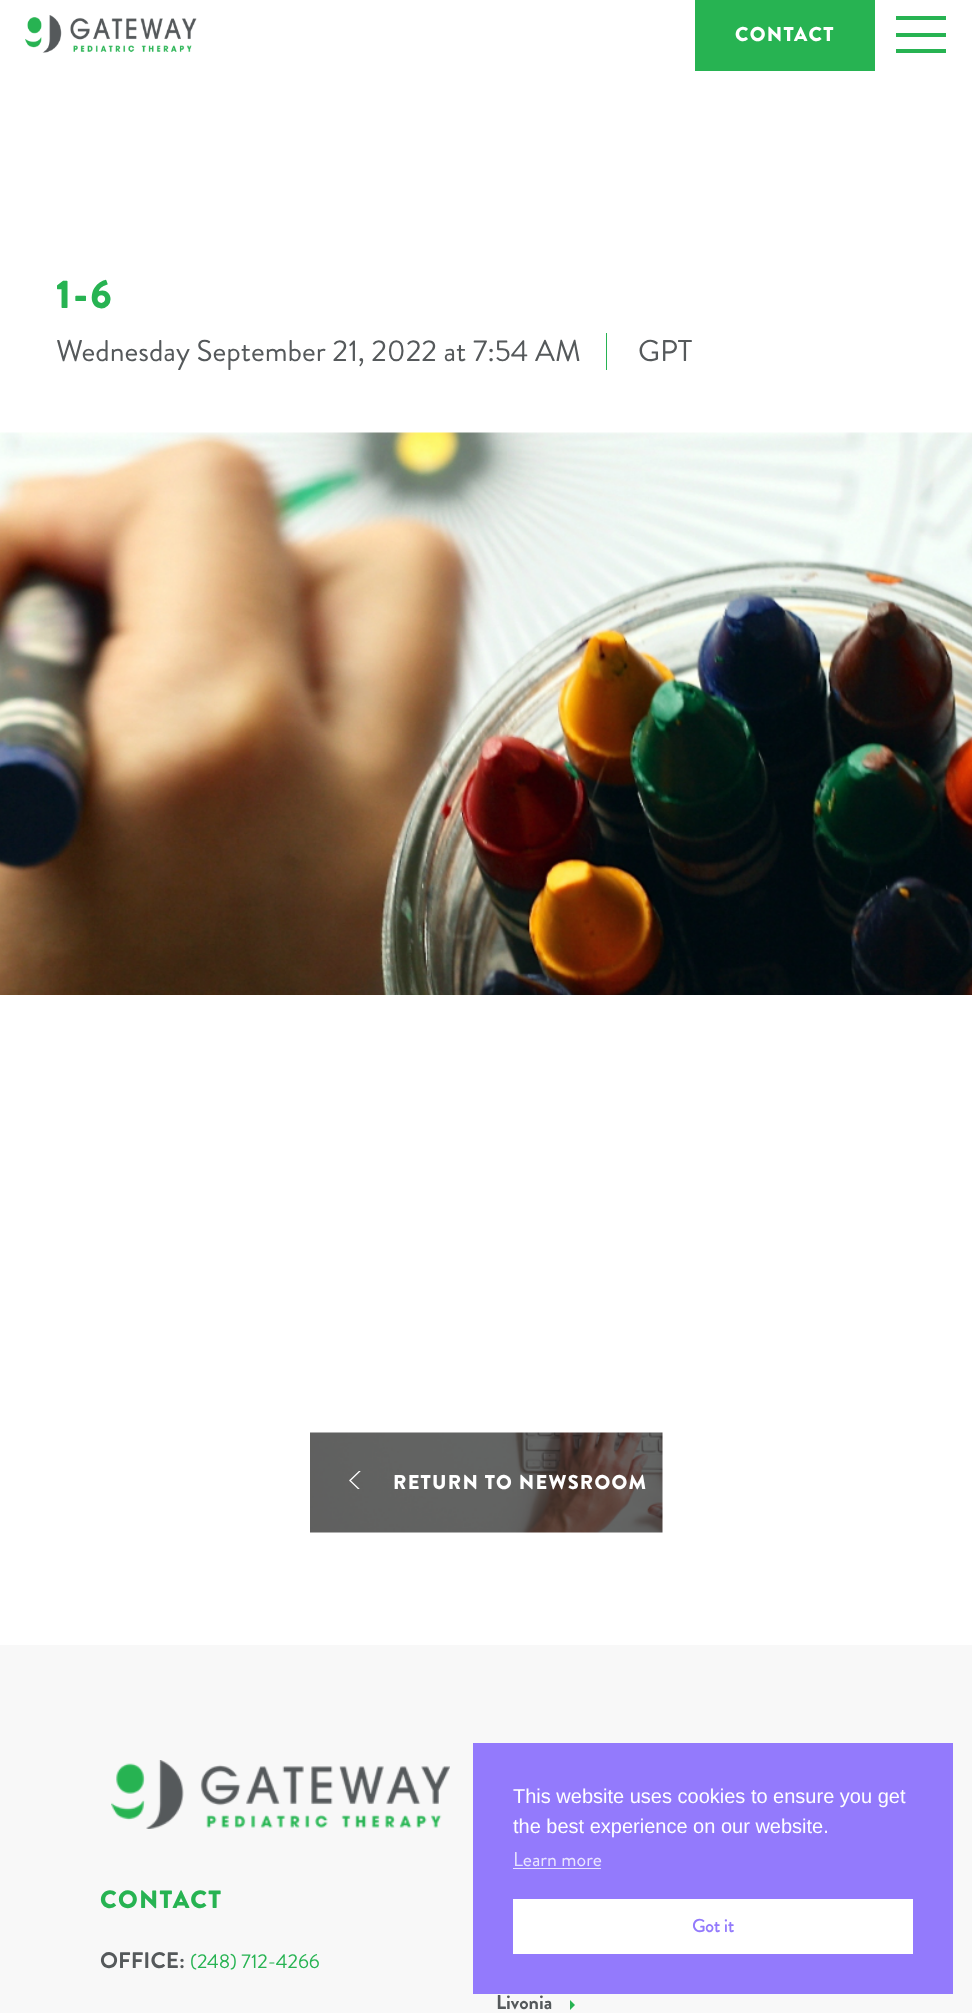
<!DOCTYPE html>
<meta charset="utf-8">
<style>body { margin: 0 } canvas { display: block }</style>
<canvas id="canvas" width="972" height="2013"></canvas>
<img id="img1" src="images/1.png" hidden>
<img id="img2" src="images/2.png" hidden>
<img id="img3" src="images/3.png" hidden>
<img id="img4" src="images/4.png" hidden>
<script>
window.onload = function () {
    const canvas = document.getElementById('canvas');
    const context = canvas.getContext('2d');
    context.miterLimit = 4;
    context.fontKerning = 'normal';

    context.fillStyle = 'rgb(255, 255, 255)';
    context.fillRect(0, 0, 972, 2013);
    context.drawImage(document.getElementById('img1'), 25, 15, 172, 38);
    context.fillStyle = 'rgb(39, 179, 82)';
    context.fillRect(695, 0, 180, 71);
    context.fillRect(896, 33, 50, 4);
    context.fillRect(896, 16, 50, 4);
    context.fillRect(896, 49, 50, 4);
    context.fillRect(606, 333, 1, 37);
    context.drawImage(document.getElementById('img2'), 0, 432, 972, 563);
    context.drawImage(document.getElementById('img3'), 310, 1432, 353, 101);
    context.save();
    context.beginPath();
    context.rect(349, 1471, 15, 18);
    context.clip();
    context.beginPath();
    context.moveTo(350, 1480.5);
    context.lineTo(363.5, 1467.5);
    context.moveTo(350, 1480.5);
    context.lineTo(363.5, 1493.5);
    context.strokeStyle = 'rgb(255, 255, 255)';
    context.lineWidth = 1.3;
    context.lineCap = 'square';
    context.stroke();
    context.restore();
    context.fillStyle = 'rgb(248, 248, 248)';
    context.fillRect(0, 1645, 972, 368);
    context.fillStyle = 'rgb(147, 122, 252)';
    context.fillRect(473, 1743, 480, 251);
    context.fillStyle = 'rgb(233, 228, 254)';
    context.fillRect(513, 1868, 88, 1);
    context.fillStyle = 'rgb(255, 255, 255)';
    context.fillRect(513, 1899, 400, 55);
    context.drawImage(document.getElementById('img4'), 111, 1760, 339, 69);
    context.fillStyle = 'rgb(39, 179, 82)';
    context.beginPath();
    context.moveTo(570, 2010);
    context.lineTo(570, 2000);
    context.lineTo(575, 2005);
    context.closePath();
    context.fill();
    context.letterSpacing = '1.25px';
    context.font = '900 20px Brandon Grotesque';
    context.fillStyle = 'rgb(255, 255, 255)';
    context.fillText('CONTACT', 735, 41);
    context.letterSpacing = '2.5px';
    context.font = '900 40px Brandon Grotesque';
    context.fillStyle = 'rgb(39, 179, 82)';
    context.fillText('1-6', 56, 308);
    context.letterSpacing = '0px';
    context.font = '30px Brandon Grotesque';
    context.fillStyle = 'rgb(85, 89, 91)';
    context.fillText('Wednesday September 21, 2022 at 7:54 AM', 56, 361);
    context.fillText('GPT', 638, 361);
    context.letterSpacing = '1.25px';
    context.font = '900 20px Brandon Grotesque';
    context.fillStyle = 'rgb(255, 255, 255)';
    context.fillText('RETURN TO NEWSROOM', 393, 1489);
    context.letterSpacing = '0px';
    context.font = '20px Liberation Sans';
    context.fillText('This website uses cookies to ensure you get', 513, 1803);
    context.fillText('the best experience on our website.', 513, 1833);
    context.font = '20px Brandon Grotesque';
    context.fillStyle = 'rgb(233, 228, 254)';
    context.fillText('Learn more', 513, 1866);
    context.font = 'bold 18px "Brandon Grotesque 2"';
    context.fillStyle = 'rgb(147, 122, 252)';
    context.fillText('Got it', 692, 1932);
    context.letterSpacing = '1.25px';
    context.font = '900 25px Brandon Grotesque';
    context.fillStyle = 'rgb(39, 179, 82)';
    context.fillText('CONTACT', 100, 1908);
    context.letterSpacing = '0px';
    context.font = 'bold 22.5px Brandon Grotesque';
    context.fillStyle = 'rgb(85, 89, 91)';
    context.fillText('OFFICE:', 100, 1968);
    context.font = '20px Brandon Grotesque';
    context.fillStyle = 'rgb(39, 179, 82)';
    context.fillText('(248) 712-4266', 190, 1968);
    context.font = 'bold 20px Brandon Grotesque';
    context.fillStyle = 'rgb(85, 89, 91)';
    context.fillText('Livonia', 496, 2009);
};
</script>
